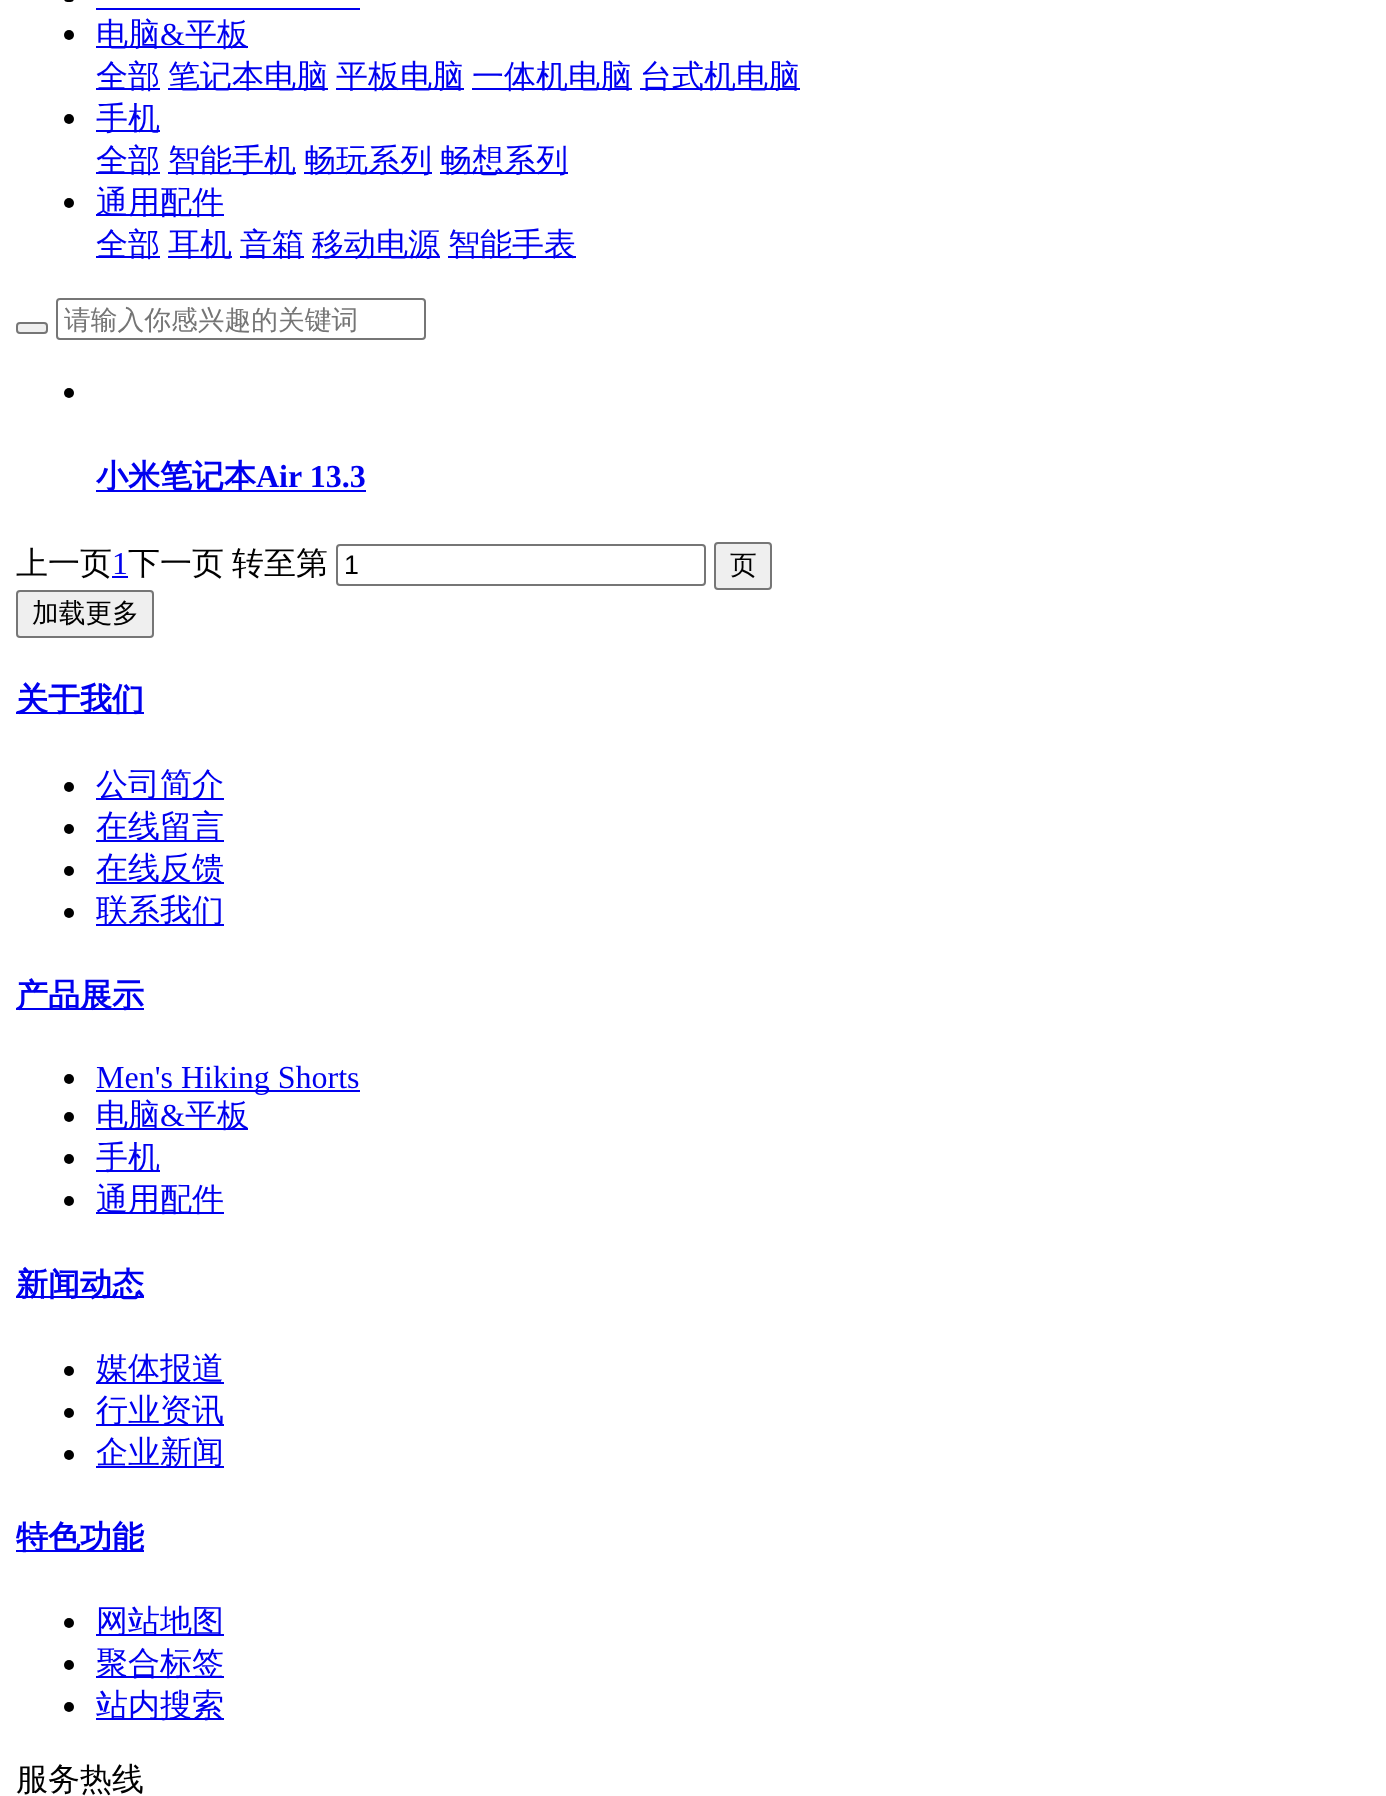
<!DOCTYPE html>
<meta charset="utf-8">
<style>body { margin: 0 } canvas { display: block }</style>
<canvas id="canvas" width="1386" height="1796"></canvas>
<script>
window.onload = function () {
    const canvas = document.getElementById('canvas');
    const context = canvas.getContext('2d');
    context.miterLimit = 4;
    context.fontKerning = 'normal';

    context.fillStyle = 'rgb(255, 255, 255)';
    context.fillRect(0, 0, 1386, 1796);
    context.fillStyle = 'rgb(0, 0, 0)';
    context.beginPath();
    context.roundRect(64, -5, 10, 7, 5);
    context.fill();
    context.fillStyle = 'rgb(0, 0, 238)';
    context.fillRect(96, 8, 264, 2);
    context.fillStyle = 'rgb(0, 0, 0)';
    context.beginPath();
    context.arc(69, 35, 5, 0, 2 * Math.PI);
    context.fill();
    context.fillStyle = 'rgb(0, 0, 238)';
    context.fillRect(96, 46, 152, 2);
    context.fillRect(96, 88, 64, 2);
    context.fillRect(168, 88, 160, 2);
    context.fillRect(336, 88, 128, 2);
    context.fillRect(472, 88, 160, 2);
    context.fillRect(640, 88, 160, 2);
    context.fillStyle = 'rgb(0, 0, 0)';
    context.beginPath();
    context.arc(69, 119, 5, 0, 2 * Math.PI);
    context.fill();
    context.fillStyle = 'rgb(0, 0, 238)';
    context.fillRect(96, 130, 64, 2);
    context.fillRect(96, 172, 64, 2);
    context.fillRect(168, 172, 128, 2);
    context.fillRect(304, 172, 128, 2);
    context.fillRect(440, 172, 128, 2);
    context.fillStyle = 'rgb(0, 0, 0)';
    context.beginPath();
    context.arc(69, 203, 5, 0, 2 * Math.PI);
    context.fill();
    context.fillStyle = 'rgb(0, 0, 238)';
    context.fillRect(96, 214, 128, 2);
    context.fillRect(96, 256, 64, 2);
    context.fillRect(168, 256, 64, 2);
    context.fillRect(240, 256, 64, 2);
    context.fillRect(312, 256, 128, 2);
    context.fillRect(448, 256, 128, 2);
    context.fillStyle = 'rgb(239, 239, 239)';
    context.beginPath();
    context.roundRect(17, 323, 30, 10, 3);
    context.fill();
    context.strokeStyle = 'rgb(118, 118, 118)';
    context.lineWidth = 2;
    context.stroke();
    context.beginPath();
    context.roundRect(57, 299, 368, 40, 3);
    context.stroke();
    context.fillStyle = 'rgb(0, 0, 0)';
    context.beginPath();
    context.arc(69, 393, 5, 0, 2 * Math.PI);
    context.fill();
    context.fillStyle = 'rgb(0, 0, 238)';
    context.fillRect(96, 490, 270, 2);
    context.fillRect(112, 576, 16, 2);
    context.beginPath();
    context.roundRect(337, 545, 368, 40, 3);
    context.stroke();
    context.fillStyle = 'rgb(239, 239, 239)';
    context.beginPath();
    context.roundRect(715, 543, 56, 46, 3);
    context.fill();
    context.stroke();
    context.beginPath();
    context.roundRect(17, 591, 136, 46, 3);
    context.fill();
    context.stroke();
    context.fillStyle = 'rgb(0, 0, 238)';
    context.fillRect(16, 712, 128, 2);
    context.fillStyle = 'rgb(0, 0, 0)';
    context.beginPath();
    context.arc(69, 787, 5, 0, 2 * Math.PI);
    context.fill();
    context.fillStyle = 'rgb(0, 0, 238)';
    context.fillRect(96, 798, 128, 2);
    context.fillStyle = 'rgb(0, 0, 0)';
    context.beginPath();
    context.arc(69, 829, 5, 0, 2 * Math.PI);
    context.fill();
    context.fillStyle = 'rgb(0, 0, 238)';
    context.fillRect(96, 840, 128, 2);
    context.fillStyle = 'rgb(0, 0, 0)';
    context.beginPath();
    context.arc(69, 871, 5, 0, 2 * Math.PI);
    context.fill();
    context.fillStyle = 'rgb(0, 0, 238)';
    context.fillRect(96, 882, 128, 2);
    context.fillStyle = 'rgb(0, 0, 0)';
    context.beginPath();
    context.arc(69, 913, 5, 0, 2 * Math.PI);
    context.fill();
    context.fillStyle = 'rgb(0, 0, 238)';
    context.fillRect(96, 924, 128, 2);
    context.fillRect(16, 1008, 128, 2);
    context.fillStyle = 'rgb(0, 0, 0)';
    context.beginPath();
    context.arc(69, 1079, 5, 0, 2 * Math.PI);
    context.fill();
    context.fillStyle = 'rgb(0, 0, 238)';
    context.fillRect(96, 1090, 264, 2);
    context.fillStyle = 'rgb(0, 0, 0)';
    context.beginPath();
    context.arc(69, 1117, 5, 0, 2 * Math.PI);
    context.fill();
    context.fillStyle = 'rgb(0, 0, 238)';
    context.fillRect(96, 1128, 152, 2);
    context.fillStyle = 'rgb(0, 0, 0)';
    context.beginPath();
    context.arc(69, 1159, 5, 0, 2 * Math.PI);
    context.fill();
    context.fillStyle = 'rgb(0, 0, 238)';
    context.fillRect(96, 1170, 64, 2);
    context.fillStyle = 'rgb(0, 0, 0)';
    context.beginPath();
    context.arc(69, 1201, 5, 0, 2 * Math.PI);
    context.fill();
    context.fillStyle = 'rgb(0, 0, 238)';
    context.fillRect(96, 1212, 128, 2);
    context.fillRect(16, 1296, 128, 2);
    context.fillStyle = 'rgb(0, 0, 0)';
    context.beginPath();
    context.arc(69, 1371, 5, 0, 2 * Math.PI);
    context.fill();
    context.fillStyle = 'rgb(0, 0, 238)';
    context.fillRect(96, 1382, 128, 2);
    context.fillStyle = 'rgb(0, 0, 0)';
    context.beginPath();
    context.arc(69, 1413, 5, 0, 2 * Math.PI);
    context.fill();
    context.fillStyle = 'rgb(0, 0, 238)';
    context.fillRect(96, 1424, 128, 2);
    context.fillStyle = 'rgb(0, 0, 0)';
    context.beginPath();
    context.arc(69, 1455, 5, 0, 2 * Math.PI);
    context.fill();
    context.fillStyle = 'rgb(0, 0, 238)';
    context.fillRect(96, 1466, 128, 2);
    context.fillRect(16, 1550, 128, 2);
    context.fillStyle = 'rgb(0, 0, 0)';
    context.beginPath();
    context.arc(69, 1623, 5, 0, 2 * Math.PI);
    context.fill();
    context.fillStyle = 'rgb(0, 0, 238)';
    context.fillRect(96, 1634, 128, 2);
    context.fillStyle = 'rgb(0, 0, 0)';
    context.beginPath();
    context.arc(69, 1665, 5, 0, 2 * Math.PI);
    context.fill();
    context.fillStyle = 'rgb(0, 0, 238)';
    context.fillRect(96, 1676, 128, 2);
    context.fillStyle = 'rgb(0, 0, 0)';
    context.beginPath();
    context.arc(69, 1707, 5, 0, 2 * Math.PI);
    context.fill();
    context.fillStyle = 'rgb(0, 0, 238)';
    context.fillRect(96, 1718, 128, 2);
    context.font = '500 32px WenQuanYi Zen Hei';
    context.fillText('电脑', 96, 45);
    context.font = '32px Liberation Serif';
    context.fillText('&', 160, 45);
    context.font = '500 32px WenQuanYi Zen Hei';
    context.fillText('平板', 185, 45);
    context.fillText('全部', 96, 87);
    context.fillText('笔记本电脑', 168, 87);
    context.fillText('平板电脑', 336, 87);
    context.fillText('一体机电脑', 472, 87);
    context.fillText('台式机电脑', 640, 87);
    context.fillText('手机', 96, 129);
    context.fillText('全部', 96, 171);
    context.fillText('智能手机', 168, 171);
    context.fillText('畅玩系列', 304, 171);
    context.fillText('畅想系列', 440, 171);
    context.fillText('通用配件', 96, 213);
    context.fillText('全部', 96, 255);
    context.fillText('耳机', 168, 255);
    context.fillText('音箱', 240, 255);
    context.fillText('移动电源', 312, 255);
    context.fillText('智能手表', 448, 255);
    context.font = '500 26.75px WenQuanYi Zen Hei';
    context.fillStyle = 'rgb(117, 117, 117)';
    context.fillText('请输入你感兴趣的关键词', 64, 329);
    context.font = 'bold 32px WenQuanYi Zen Hei';
    context.fillStyle = 'rgb(0, 0, 238)';
    context.fillText('小米笔记本', 96, 487);
    context.font = 'bold 32px Liberation Serif';
    context.fillText('Air 13.3', 256, 487);
    context.font = '500 32px WenQuanYi Zen Hei';
    context.fillStyle = 'rgb(0, 0, 0)';
    context.fillText('上一页', 16, 574);
    context.font = '32px Liberation Serif';
    context.fillStyle = 'rgb(0, 0, 238)';
    context.fillText('1', 112, 574);
    context.font = '500 32px WenQuanYi Zen Hei';
    context.fillStyle = 'rgb(0, 0, 0)';
    context.fillText('下一页', 128, 574);
    context.fillText('转至第', 232, 574);
    context.font = '26.75px Liberation Sans';
    context.fillText('1', 344, 574);
    context.font = '500 26.75px WenQuanYi Zen Hei';
    context.fillText('页', 730, 574);
    context.fillText('加载更多', 32, 622);
    context.font = 'bold 32px WenQuanYi Zen Hei';
    context.fillStyle = 'rgb(0, 0, 238)';
    context.fillText('关于我们', 16, 710);
    context.font = '500 32px WenQuanYi Zen Hei';
    context.fillText('公司简介', 96, 795);
    context.fillText('在线留言', 96, 837);
    context.fillText('在线反馈', 96, 879);
    context.fillText('联系我们', 96, 921);
    context.font = 'bold 32px WenQuanYi Zen Hei';
    context.fillText('产品展示', 16, 1006);
    context.font = '32px Liberation Serif';
    context.fillText('Men\'s Hiking Shorts', 96, 1088);
    context.font = '500 32px WenQuanYi Zen Hei';
    context.fillText('电脑', 96, 1126);
    context.font = '32px Liberation Serif';
    context.fillText('&', 160, 1126);
    context.font = '500 32px WenQuanYi Zen Hei';
    context.fillText('平板', 185, 1126);
    context.fillText('手机', 96, 1168);
    context.fillText('通用配件', 96, 1210);
    context.font = 'bold 32px WenQuanYi Zen Hei';
    context.fillText('新闻动态', 16, 1295);
    context.font = '500 32px WenQuanYi Zen Hei';
    context.fillText('媒体报道', 96, 1379);
    context.fillText('行业资讯', 96, 1421);
    context.fillText('企业新闻', 96, 1463);
    context.font = 'bold 32px WenQuanYi Zen Hei';
    context.fillText('特色功能', 16, 1548);
    context.font = '500 32px WenQuanYi Zen Hei';
    context.fillText('网站地图', 96, 1632);
    context.fillText('聚合标签', 96, 1674);
    context.fillText('站内搜索', 96, 1716);
    context.fillStyle = 'rgb(0, 0, 0)';
    context.fillText('服务热线', 16, 1790);
};
</script>
